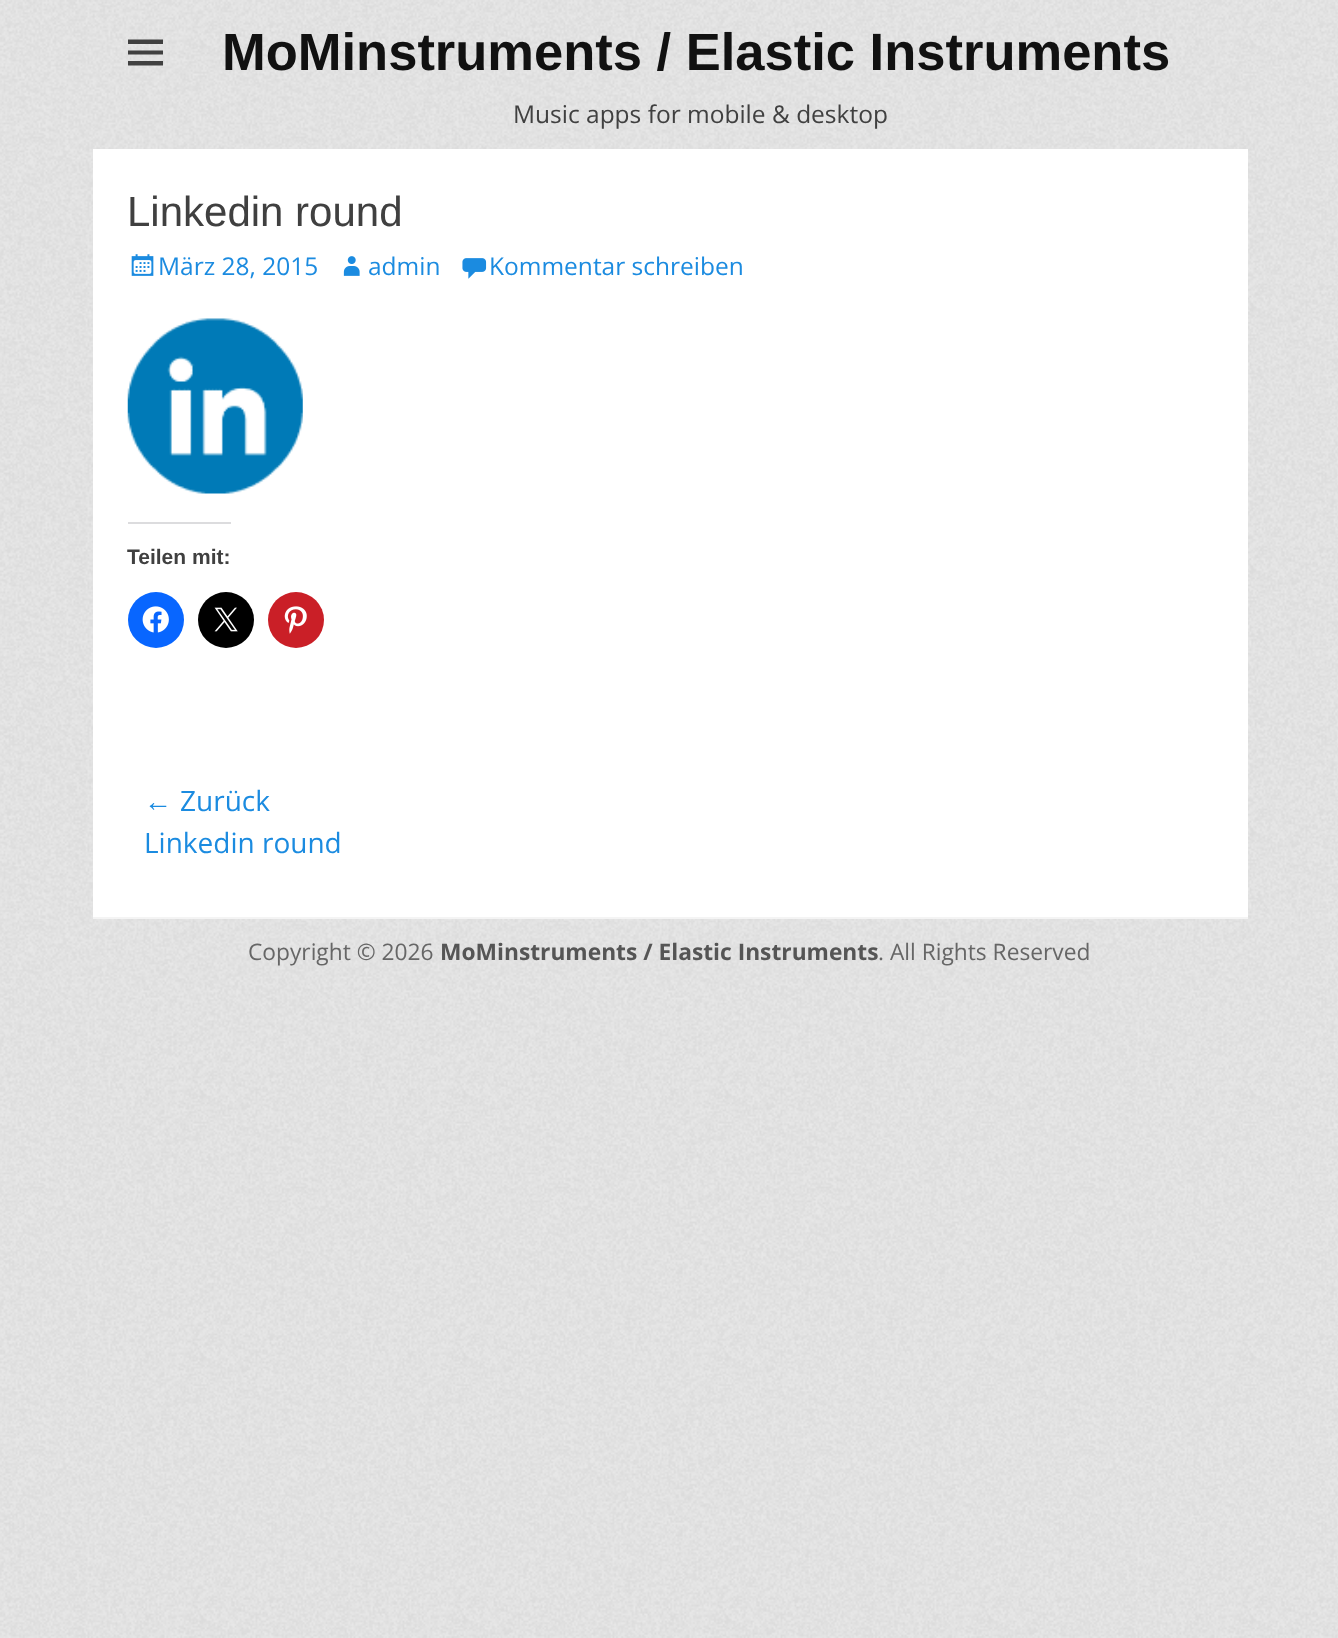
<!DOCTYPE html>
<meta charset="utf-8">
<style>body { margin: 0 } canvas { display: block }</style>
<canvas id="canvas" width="1338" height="1638"></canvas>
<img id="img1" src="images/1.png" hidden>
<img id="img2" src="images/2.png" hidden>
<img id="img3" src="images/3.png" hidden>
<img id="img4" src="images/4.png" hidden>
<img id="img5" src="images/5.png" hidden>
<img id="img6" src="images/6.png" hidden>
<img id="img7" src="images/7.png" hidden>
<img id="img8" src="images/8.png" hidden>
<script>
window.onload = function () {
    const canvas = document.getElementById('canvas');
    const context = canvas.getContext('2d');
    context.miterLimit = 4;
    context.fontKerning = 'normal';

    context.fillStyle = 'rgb(255, 255, 255)';
    context.fillRect(0, 0, 1338, 1638);
    context.drawImage(document.getElementById('img1'), 0, 0, 1338, 1638);
    context.fillStyle = 'rgb(64, 64, 64)';
    context.beginPath();
    context.moveTo(128, 65.5);
    context.lineTo(128, 61);
    context.lineTo(163, 61);
    context.lineTo(163, 65.5);
    context.closePath();
    context.moveTo(128, 39.5);
    context.lineTo(163, 39.5);
    context.lineTo(163, 44);
    context.lineTo(128, 44);
    context.closePath();
    context.moveTo(128, 54.5);
    context.lineTo(128, 50.5);
    context.lineTo(163, 50.5);
    context.lineTo(163, 54.5);
    context.closePath();
    context.fill();
    context.fillStyle = 'rgb(255, 255, 255)';
    context.fillRect(93, 149, 1155, 768);
    context.drawImage(document.getElementById('img2'), 131, 254, 23, 22);
    context.drawImage(document.getElementById('img3'), 343, 256, 17, 20);
    context.drawImage(document.getElementById('img4'), 462, 258, 25, 21);
    context.drawImage(document.getElementById('img5'), 127, 318, 176, 176);
    context.fillStyle = 'rgb(220, 220, 222)';
    context.fillRect(128, 522, 103, 2);
    context.fillStyle = 'rgb(8, 102, 255)';
    context.beginPath();
    context.arc(156, 620, 28, 0, 2 * Math.PI);
    context.fill();
    context.drawImage(document.getElementById('img6'), 142, 606, 27, 27);
    context.fillStyle = 'rgb(0, 0, 0)';
    context.beginPath();
    context.arc(226, 620, 28, 0, 2 * Math.PI);
    context.fill();
    context.drawImage(document.getElementById('img7'), 214, 607, 24, 25);
    context.fillStyle = 'rgb(202, 31, 39)';
    context.beginPath();
    context.arc(296, 620, 28, 0, 2 * Math.PI);
    context.fill();
    context.drawImage(document.getElementById('img8'), 284, 606, 23, 28);
    context.fillStyle = 'rgb(244, 244, 244)';
    context.fillRect(93, 917, 1155, 2);
    context.font = 'bold 52.5px Liberation Sans';
    context.fillStyle = 'rgb(17, 17, 17)';
    context.fillText('MoMinstruments / Elastic Instruments', 222, 70);
    context.font = '24.5px Open Sans';
    context.fillStyle = 'rgb(64, 64, 64)';
    context.fillText('Music apps for mobile & desktop', 513, 123);
    context.font = '42px Liberation Sans';
    context.fillText('Linkedin round', 127, 226);
    context.font = '24.5px Open Sans';
    context.fillStyle = 'rgb(27, 139, 224)';
    context.fillText('März 28, 2015', 158, 275);
    context.fillText('admin', 368, 275);
    context.fillText('Kommentar schreiben', 489, 275);
    context.font = 'bold 21px Liberation Sans';
    context.fillStyle = 'rgb(64, 64, 64)';
    context.fillText('Teilen mit:', 127, 564);
    context.font = '28px Liberation Sans';
    context.fillStyle = 'rgb(27, 139, 224)';
    context.fillText('←', 144, 811);
    context.font = '28px Open Sans';
    context.fillText('Zurück', 180, 811);
    context.fillText('Linkedin round', 144, 853);
    context.font = '22.75px Open Sans';
    context.fillStyle = 'rgb(102, 102, 102)';
    context.fillText('Copyright © 2026', 248, 960);
    context.font = 'bold 22.75px Open Sans';
    context.fillStyle = 'rgb(85, 85, 85)';
    context.fillText('MoMinstruments / Elastic Instruments', 440, 960);
    context.font = '22.75px Open Sans';
    context.fillStyle = 'rgb(102, 102, 102)';
    context.fillText('. All Rights Reserved', 878, 960);
};
</script>
